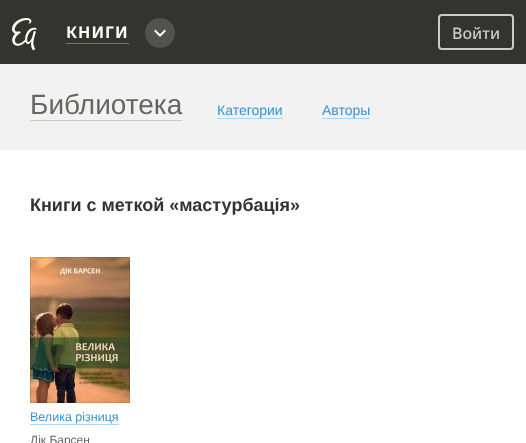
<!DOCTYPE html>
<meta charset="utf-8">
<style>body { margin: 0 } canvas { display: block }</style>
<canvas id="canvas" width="526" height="443"></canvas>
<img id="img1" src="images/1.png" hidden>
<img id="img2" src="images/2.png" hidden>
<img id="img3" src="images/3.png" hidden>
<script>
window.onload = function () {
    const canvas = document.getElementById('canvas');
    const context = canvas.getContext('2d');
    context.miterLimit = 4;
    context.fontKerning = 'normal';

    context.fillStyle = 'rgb(255, 255, 255)';
    context.fillRect(0, 0, 526, 443);
    context.fillStyle = 'rgb(51, 51, 48)';
    context.fillRect(0, 0, 526, 64);
    context.drawImage(document.getElementById('img1'), 12, 18, 25, 32);
    context.fillStyle = 'rgb(118, 118, 112)';
    context.fillRect(66, 43, 63, 1);
    context.fillStyle = 'rgb(82, 82, 79)';
    context.beginPath();
    context.arc(160, 33, 15, 0, 2 * Math.PI);
    context.fill();
    context.drawImage(document.getElementById('img2'), 154, 29, 12, 8);
    context.beginPath();
    context.roundRect(439, 15, 74, 34, 3);
    context.strokeStyle = 'rgb(205, 203, 194)';
    context.lineWidth = 2;
    context.stroke();
    context.fillStyle = 'rgb(242, 242, 242)';
    context.fillRect(0, 64, 526, 86);
    context.fillStyle = 'rgb(204, 203, 194)';
    context.fillRect(30, 120, 152, 1);
    context.fillStyle = 'rgb(176, 211, 237)';
    context.fillRect(217, 118, 66, 1);
    context.fillRect(322, 118, 48, 1);
    context.drawImage(document.getElementById('img3'), 30, 257, 100, 146);
    context.strokeStyle = 'rgba(0, 0, 0, 0.1)';
    context.lineWidth = 1;
    context.strokeRect(30.5, 257.5, 99, 145);
    context.fillRect(30, 424, 89, 1);
    context.letterSpacing = '1px';
    context.font = 'bold 16px Noto Sans';
    context.fillStyle = 'rgb(255, 253, 242)';
    context.fillText('КНИГИ', 66, 38);
    context.letterSpacing = '0px';
    context.font = '500 16px Noto Sans';
    context.fillStyle = 'rgb(205, 203, 194)';
    context.fillText('Войти', 452, 39);
    context.font = '28px Liberation Sans';
    context.fillStyle = 'rgb(102, 101, 97)';
    context.fillText('Библиотека', 30, 114);
    context.font = '14px Liberation Sans';
    context.fillStyle = 'rgb(57, 145, 211)';
    context.fillText('Категории', 217, 115);
    context.fillText('Авторы', 322, 115);
    context.font = 'bold 18px Liberation Sans';
    context.fillStyle = 'rgb(51, 51, 48)';
    context.fillText('Книги с меткой «мастурбація»', 30, 211);
    context.font = '12.5px Liberation Sans';
    context.fillStyle = 'rgb(57, 145, 211)';
    context.fillText('Велика різниця', 30, 421);
    context.font = '12px Liberation Sans';
    context.fillStyle = 'rgb(102, 101, 97)';
    context.fillText('Дік Барсен', 30, 444);
};
</script>
